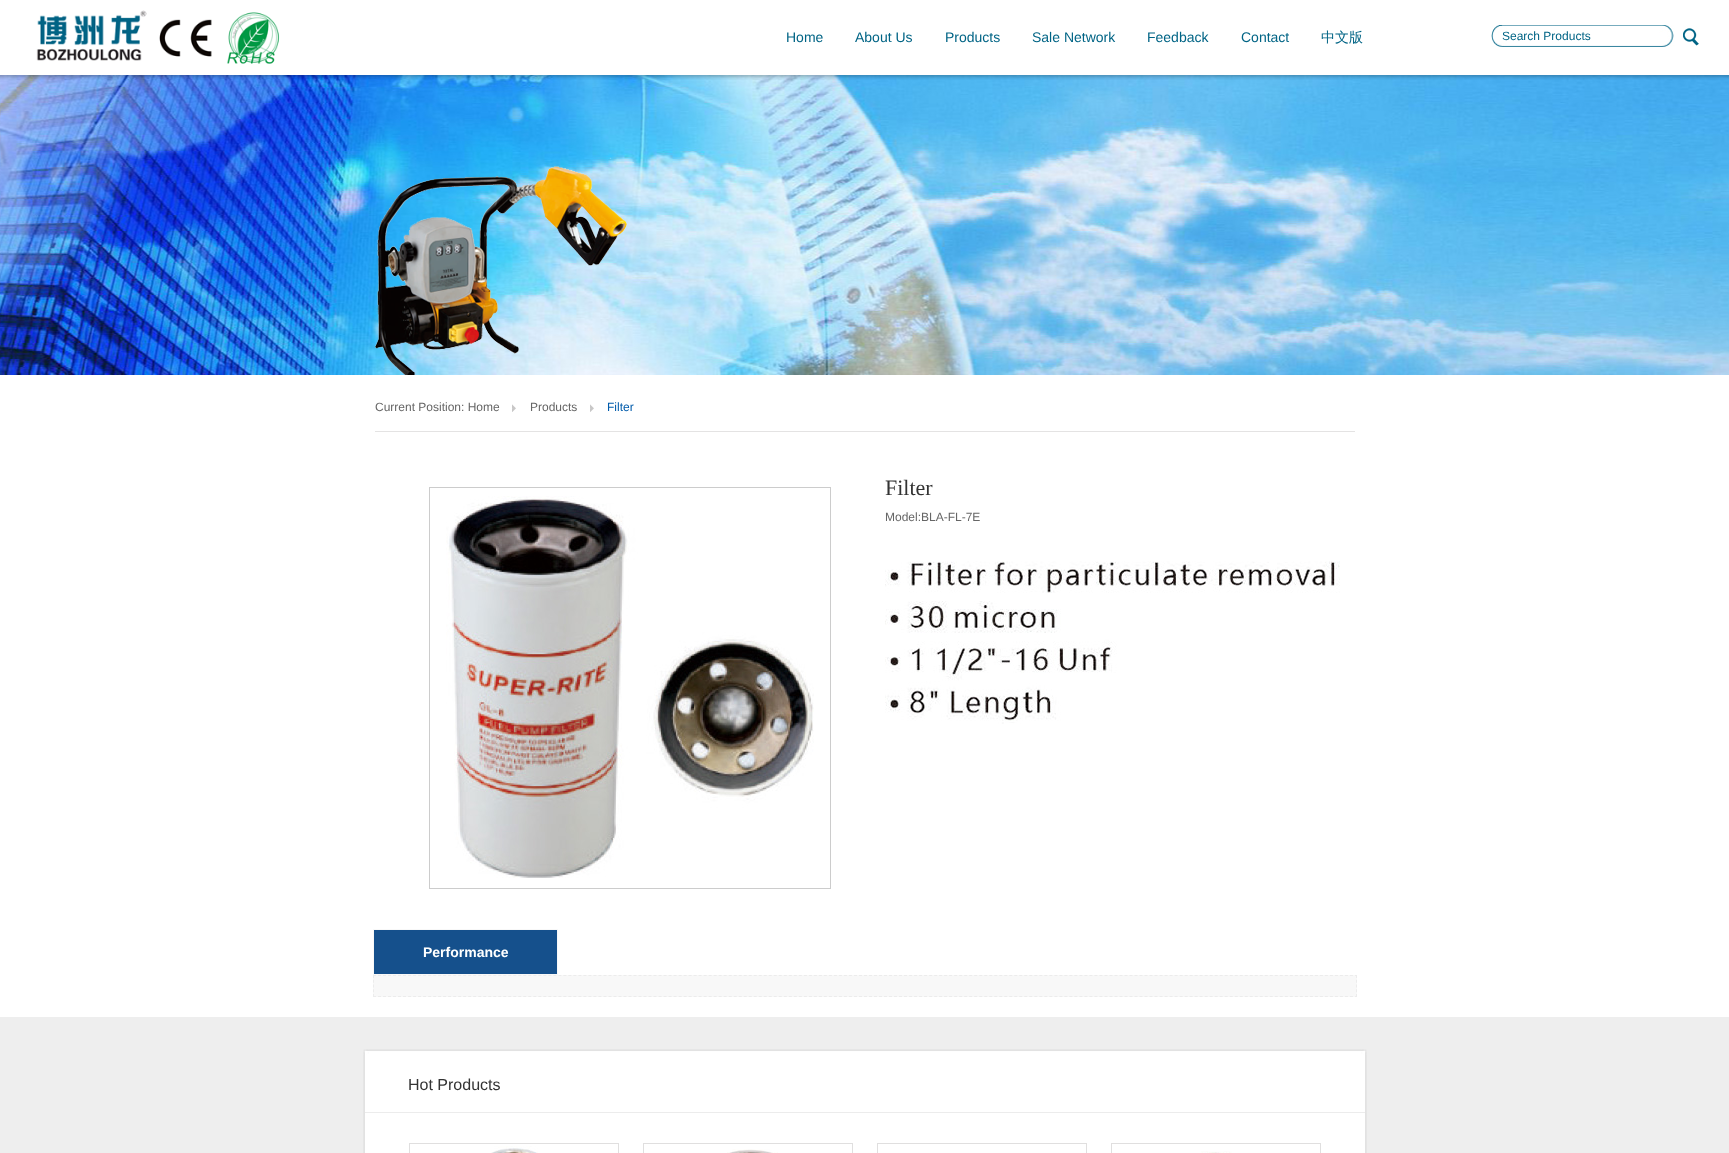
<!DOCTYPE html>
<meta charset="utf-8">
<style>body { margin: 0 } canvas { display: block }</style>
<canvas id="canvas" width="1729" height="1153"></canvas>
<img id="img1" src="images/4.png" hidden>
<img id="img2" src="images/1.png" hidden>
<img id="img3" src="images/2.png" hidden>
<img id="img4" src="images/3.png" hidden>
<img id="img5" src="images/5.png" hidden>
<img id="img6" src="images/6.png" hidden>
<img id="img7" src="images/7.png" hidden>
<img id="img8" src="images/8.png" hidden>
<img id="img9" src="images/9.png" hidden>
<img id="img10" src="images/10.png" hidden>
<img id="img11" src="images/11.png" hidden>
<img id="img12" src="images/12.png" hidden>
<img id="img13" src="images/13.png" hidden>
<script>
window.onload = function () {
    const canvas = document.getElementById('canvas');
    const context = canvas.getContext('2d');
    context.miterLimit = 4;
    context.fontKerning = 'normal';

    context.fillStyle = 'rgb(255, 255, 255)';
    context.fillRect(0, 0, 1729, 1153);
    context.drawImage(document.getElementById('img1'), 0, 75, 1729, 300);
    context.drawImage(document.getElementById('img2'), 0, 75, 1729, 5);
    context.drawImage(document.getElementById('img3'), 36, 10, 244, 54);
    context.drawImage(document.getElementById('img4'), 1491, 25, 208, 22);
    context.drawImage(document.getElementById('img5'), 375, 157, 259, 218);
    context.fillStyle = 'rgb(228, 227, 227)';
    context.fillRect(375, 431, 980, 1);
    context.drawImage(document.getElementById('img6'), 512, 404, 4, 8);
    context.drawImage(document.getElementById('img6'), 590, 404, 4, 8);
    context.strokeStyle = 'rgb(204, 204, 204)';
    context.strokeRect(429.5, 487.5, 401, 401);
    context.drawImage(document.getElementById('img7'), 446, 496, 368, 382);
    context.drawImage(document.getElementById('img8'), 885, 561, 455, 163);
    context.strokeStyle = 'rgb(248, 248, 248)';
    context.strokeRect(373.5, 929.5, 184, 45);
    context.fillStyle = 'rgb(21, 80, 140)';
    context.fillRect(374, 930, 183, 44);
    context.fillStyle = 'rgb(248, 248, 248)';
    context.fillRect(373, 975, 984, 22);
    context.beginPath();
    context.moveTo(373, 975.5);
    context.lineTo(1357, 975.5);
    context.strokeStyle = 'rgb(236, 236, 236)';
    context.setLineDash([3, 2.01]);
    context.stroke();
    context.beginPath();
    context.moveTo(1356.5, 975);
    context.lineTo(1356.5, 997);
    context.setLineDash([3, 1.75]);
    context.stroke();
    context.beginPath();
    context.moveTo(373, 996.5);
    context.lineTo(1357, 996.5);
    context.setLineDash([3, 2.01]);
    context.stroke();
    context.beginPath();
    context.moveTo(373.5, 975);
    context.lineTo(373.5, 997);
    context.setLineDash([3, 1.75]);
    context.stroke();
    context.fillStyle = 'rgb(238, 238, 238)';
    context.fillRect(0, 1017, 1729, 136);
    context.drawImage(document.getElementById('img9'), 363, 1049, 1004, 8);
    context.drawImage(document.getElementById('img10'), 363, 1057, 1004, 96);
    context.fillStyle = 'rgb(236, 236, 236)';
    context.fillRect(365, 1112, 1000, 1);
    context.strokeStyle = 'rgb(224, 223, 223)';
    context.setLineDash([]);
    context.strokeRect(409.5, 1143.5, 209, 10);
    context.drawImage(document.getElementById('img11'), 491, 1146, 47, 7);
    context.strokeRect(643.5, 1143.5, 209, 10);
    context.drawImage(document.getElementById('img12'), 727, 1149, 51, 4);
    context.strokeRect(877.5, 1143.5, 209, 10);
    context.strokeRect(1111.5, 1143.5, 209, 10);
    context.drawImage(document.getElementById('img13'), 1201, 1151, 31, 2);
    context.font = '14px Liberation Sans';
    context.fillStyle = 'rgb(0, 100, 133)';
    context.fillText('Home', 786, 42);
    context.fillText('About Us', 855, 42);
    context.fillText('Products', 945, 42);
    context.fillText('Sale Network', 1032, 42);
    context.fillText('Feedback', 1147, 42);
    context.fillText('Contact', 1241, 42);
    context.font = '500 14px WenQuanYi Zen Hei';
    context.fillText('中文版', 1321, 42);
    context.font = '12px Liberation Sans';
    context.fillText('Search Products', 1502, 40);
    context.fillStyle = 'rgb(102, 102, 102)';
    context.fillText('Current Position: Home', 375, 411);
    context.fillText('Products', 530, 411);
    context.fillStyle = 'rgb(0, 91, 171)';
    context.fillText('Filter', 607, 411);
    context.font = '22px Liberation Serif';
    context.fillStyle = 'rgb(51, 51, 51)';
    context.fillText('Filter', 885, 495);
    context.font = '12px Liberation Sans';
    context.fillStyle = 'rgb(102, 102, 102)';
    context.fillText('Model:BLA-FL-7E', 885, 521);
    context.font = 'bold 14px Liberation Sans';
    context.fillStyle = 'rgb(255, 255, 255)';
    context.fillText('Performance', 423, 957);
    context.font = '16px Liberation Sans';
    context.fillStyle = 'rgb(51, 51, 51)';
    context.fillText('Hot Products', 408, 1090);
};
</script>
